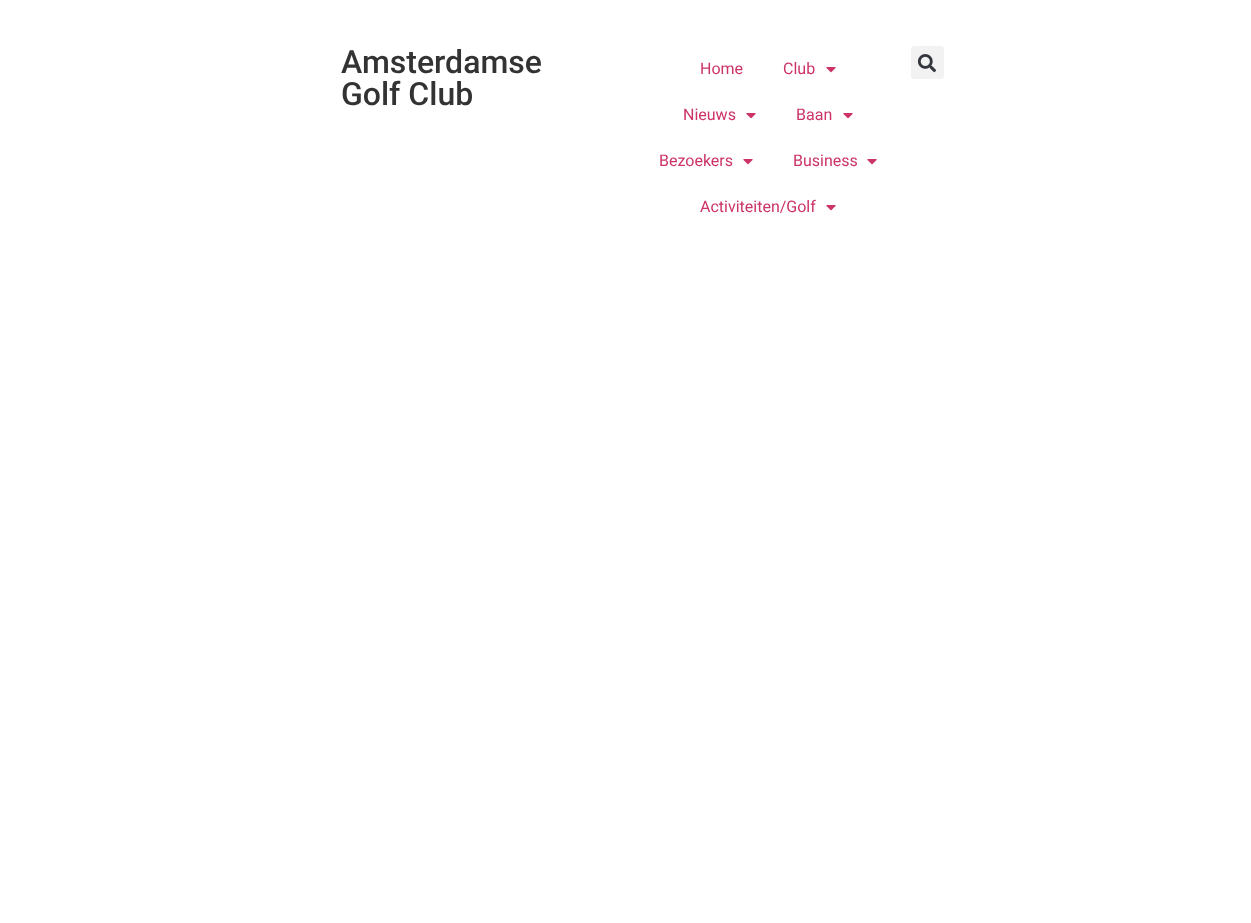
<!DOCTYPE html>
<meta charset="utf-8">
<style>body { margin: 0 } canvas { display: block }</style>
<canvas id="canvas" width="1251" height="923"></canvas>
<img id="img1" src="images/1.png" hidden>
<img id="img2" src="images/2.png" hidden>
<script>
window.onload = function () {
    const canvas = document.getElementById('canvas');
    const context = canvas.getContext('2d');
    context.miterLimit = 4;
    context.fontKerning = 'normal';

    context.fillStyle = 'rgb(255, 255, 255)';
    context.fillRect(0, 0, 1251, 923);
    context.drawImage(document.getElementById('img1'), 826, 67, 10, 6);
    context.drawImage(document.getElementById('img1'), 746, 113, 10, 6);
    context.drawImage(document.getElementById('img1'), 843, 113, 10, 6);
    context.drawImage(document.getElementById('img1'), 743, 159, 10, 6);
    context.drawImage(document.getElementById('img1'), 867, 159, 10, 6);
    context.drawImage(document.getElementById('img1'), 826, 205, 10, 6);
    context.fillStyle = 'rgb(242, 242, 242)';
    context.beginPath();
    context.roundRect(911, 46, 33, 33, 3);
    context.fill();
    context.drawImage(document.getElementById('img2'), 917, 54, 19, 19);
    context.font = '500 32px Roboto';
    context.fillStyle = 'rgb(51, 51, 51)';
    context.fillText('Amsterdamse', 341, 73);
    context.fillText('Golf Club', 341, 105);
    context.font = '16px Roboto';
    context.fillStyle = 'rgb(204, 51, 102)';
    context.fillText('Home', 700, 74);
    context.fillText('Club', 783, 74);
    context.fillText('Nieuws', 683, 120);
    context.fillText('Baan', 796, 120);
    context.fillText('Bezoekers', 659, 166);
    context.fillText('Business', 793, 166);
    context.fillText('Activiteiten/Golf', 700, 212);
};
</script>
